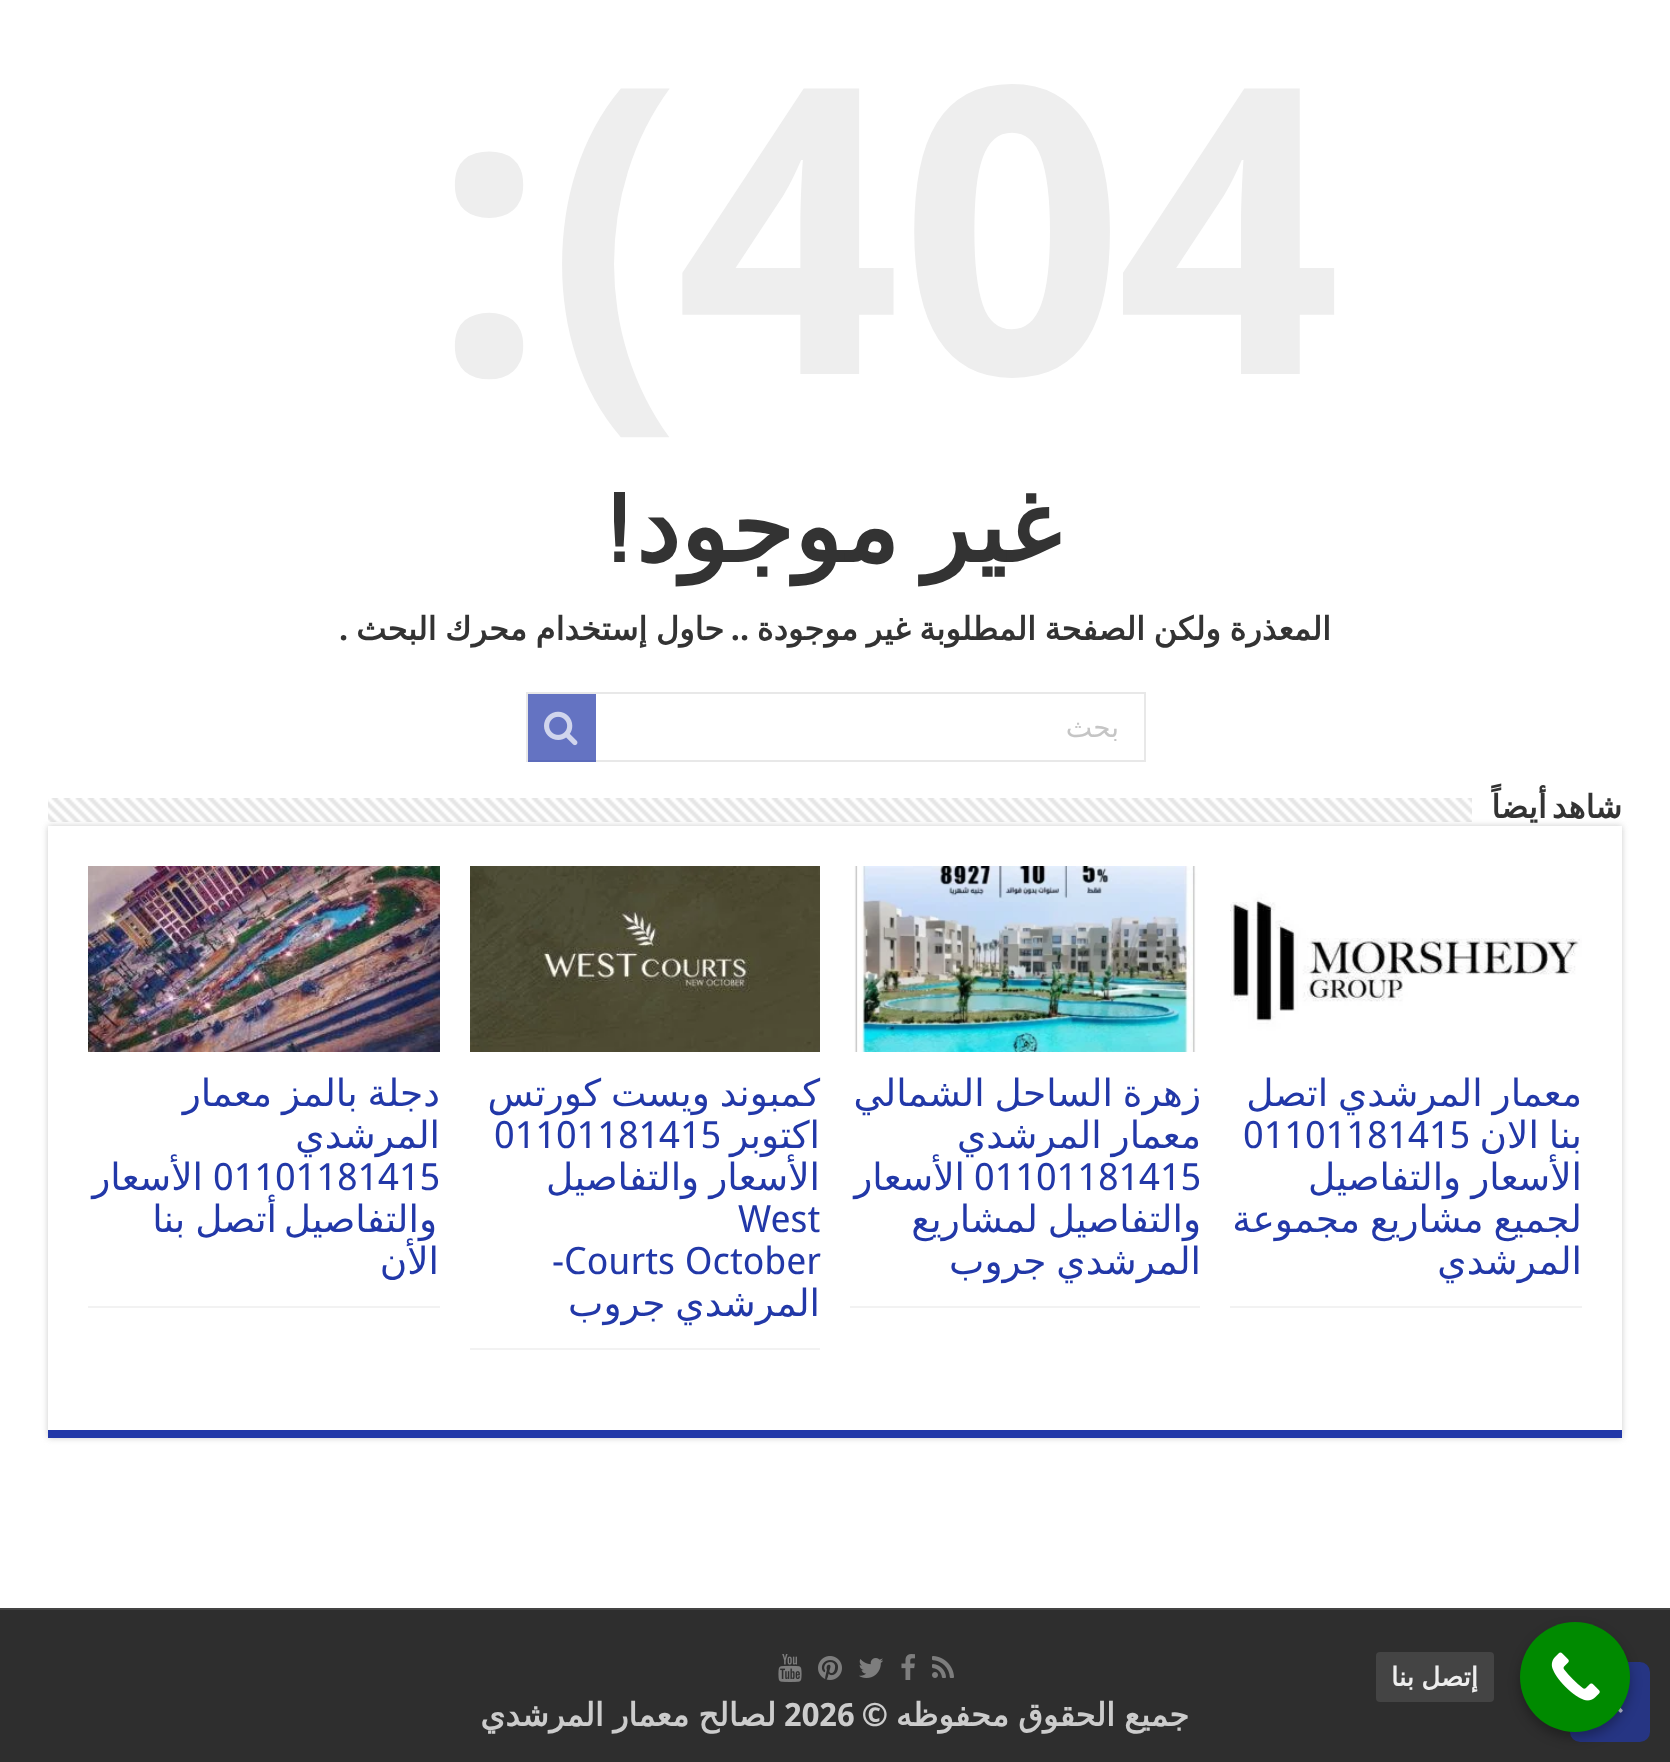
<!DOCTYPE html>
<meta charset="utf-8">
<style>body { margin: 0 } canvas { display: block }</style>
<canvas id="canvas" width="1670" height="1762"></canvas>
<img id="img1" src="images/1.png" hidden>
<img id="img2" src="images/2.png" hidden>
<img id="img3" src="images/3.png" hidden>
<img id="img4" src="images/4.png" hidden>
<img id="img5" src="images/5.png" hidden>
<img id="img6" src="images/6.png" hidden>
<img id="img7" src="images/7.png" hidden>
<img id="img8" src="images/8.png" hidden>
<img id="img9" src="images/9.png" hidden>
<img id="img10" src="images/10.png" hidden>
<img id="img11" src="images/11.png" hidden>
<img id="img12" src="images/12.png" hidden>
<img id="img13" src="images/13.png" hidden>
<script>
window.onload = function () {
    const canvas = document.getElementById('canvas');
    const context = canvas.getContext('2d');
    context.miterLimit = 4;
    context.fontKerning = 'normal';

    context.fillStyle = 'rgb(255, 255, 255)';
    context.fillRect(0, 0, 1670, 1762);
    context.strokeStyle = 'rgb(232, 232, 232)';
    context.lineWidth = 2;
    context.strokeRect(527, 693, 618, 68);
    context.fillStyle = 'rgba(34, 56, 168, 0.7)';
    context.fillRect(528, 694, 68, 68);
    context.drawImage(document.getElementById('img1'), 544, 711, 34, 35);
    context.save();
    context.beginPath();
    context.moveTo(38, 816);
    context.lineTo(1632, 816);
    context.lineTo(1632, 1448);
    context.lineTo(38, 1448);
    context.closePath();
    context.moveTo(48, 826);
    context.lineTo(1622, 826);
    context.lineTo(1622, 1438);
    context.lineTo(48, 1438);
    context.closePath();
    context.clip('evenodd');
    context.fillStyle = 'rgb(202, 202, 202)';
    context.filter = 'blur(3px)';
    context.beginPath();
    context.rect(48, 826, 1574, 612);
    context.fill();
    context.filter = 'none';
    context.restore();
    context.drawImage(document.getElementById('img2'), 48, 798, 1424, 24);
    context.fillStyle = 'rgb(34, 56, 168)';
    context.fillRect(48, 1430, 1574, 8);
    context.drawImage(document.getElementById('img3'), 1230, 866, 352, 186);
    context.fillStyle = 'rgb(242, 242, 242)';
    context.fillRect(1230, 1306, 352, 2);
    context.drawImage(document.getElementById('img4'), 850, 866, 350, 186);
    context.fillRect(850, 1306, 350, 2);
    context.drawImage(document.getElementById('img5'), 470, 866, 350, 186);
    context.fillRect(470, 1348, 350, 2);
    context.drawImage(document.getElementById('img6'), 88, 866, 352, 186);
    context.fillRect(88, 1306, 352, 2);
    context.fillStyle = 'rgb(46, 46, 46)';
    context.fillRect(0, 1610, 1670, 152);
    context.fillStyle = 'rgb(68, 68, 68)';
    context.fillRect(0, 1608, 1670, 2);
    context.drawImage(document.getElementById('img7'), 932, 1656, 22, 22);
    context.drawImage(document.getElementById('img8'), 901, 1654, 14, 26);
    context.drawImage(document.getElementById('img9'), 859, 1658, 24, 20);
    context.drawImage(document.getElementById('img10'), 818, 1656, 24, 24);
    context.drawImage(document.getElementById('img11'), 778, 1654, 24, 28);
    context.fillStyle = 'rgb(38, 53, 131)';
    context.beginPath();
    context.roundRect(1570, 1662, 80, 80, 10);
    context.fill();
    context.drawImage(document.getElementById('img12'), 1618, 1707, 5, 6);
    context.fillStyle = 'rgba(0, 0, 0, 0.3)';
    context.filter = 'blur(6px)';
    context.beginPath();
    context.roundRect(1520, 1628, 110, 110, 55);
    context.fill();
    context.filter = 'none';
    context.fillStyle = 'rgb(0, 138, 0)';
    context.beginPath();
    context.arc(1575, 1677, 55, 0, 2 * Math.PI);
    context.fill();
    context.drawImage(document.getElementById('img13'), 1551, 1652, 49, 49);
    context.fillStyle = 'rgb(68, 68, 68)';
    context.beginPath();
    context.roundRect(1376, 1652, 118, 50, 4);
    context.fill();
    context.font = 'bold 400px Droid Sans';
    context.fillStyle = 'rgb(238, 238, 238)';
    context.fillText(':(404', 432, 374);
    context.wordSpacing = '-8px';
    context.direction = 'rtl';
    context.font = 'bold 100px DejaVu Sans';
    context.fillStyle = 'rgb(51, 51, 51)';
    context.fillText('غير موجود', 1060, 562);
    context.wordSpacing = '0px';
    context.font = 'bold 100px Bebas Neue';
    context.fillText('!', 629, 562);
    context.wordSpacing = '-1.5px';
    context.font = 'bold 32px DejaVu Sans';
    context.fillText('المعذرة ولكن الصفحة المطلوبة غير موجودة', 1331, 640);
    context.wordSpacing = '0px';
    context.font = 'bold 32px Droid Sans';
    context.fillText('..', 749, 640);
    context.wordSpacing = '-1.5px';
    context.font = 'bold 32px DejaVu Sans';
    context.fillText('حاول إستخدام محرك البحث', 724, 640);
    context.wordSpacing = '0px';
    context.font = 'bold 32px Droid Sans';
    context.fillText('.', 348, 640);
    context.font = '28px DejaVu Sans';
    context.fillStyle = 'rgb(197, 197, 197)';
    context.fillText('بحث', 1119, 737);
    context.wordSpacing = '-5px';
    context.font = 'bold 32px DejaVu Sans';
    context.fillStyle = 'rgb(51, 51, 51)';
    context.fillText('شاهد أيضاً', 1622, 818);
    context.wordSpacing = '-2px';
    context.font = '37.5px DejaVu Sans';
    context.fillStyle = 'rgb(34, 56, 168)';
    context.fillText('معمار المرشدي اتصل', 1582, 1106);
    context.fillText('بنا الان', 1582, 1148);
    context.wordSpacing = '0px';
    context.direction = 'ltr';
    context.font = '37.5px Droid Sans';
    context.fillText('01101181415', 1243, 1148);
    context.wordSpacing = '-2px';
    context.direction = 'rtl';
    context.font = '37.5px DejaVu Sans';
    context.fillText('الأسعار والتفاصيل', 1582, 1190);
    context.fillText('لجميع مشاريع مجموعة', 1582, 1232);
    context.wordSpacing = '0px';
    context.fillText('المرشدي', 1582, 1274);
    context.wordSpacing = '-2px';
    context.fillText('زهرة الساحل الشمالي', 1201, 1106);
    context.fillText('معمار المرشدي', 1201, 1148);
    context.wordSpacing = '0px';
    context.direction = 'ltr';
    context.font = '37.5px Droid Sans';
    context.fillText('01101181415', 974, 1190);
    context.direction = 'rtl';
    context.font = '37.5px DejaVu Sans';
    context.fillText('الأسعار', 965, 1190);
    context.wordSpacing = '-2px';
    context.fillText('والتفاصيل لمشاريع', 1201, 1232);
    context.fillText('المرشدي جروب', 1201, 1274);
    context.fillText('كمبوند ويست كورتس', 820, 1106);
    context.wordSpacing = '0px';
    context.fillText('اكتوبر', 820, 1148);
    context.direction = 'ltr';
    context.font = '37.5px Droid Sans';
    context.fillText('01101181415', 494, 1148);
    context.wordSpacing = '-2px';
    context.direction = 'rtl';
    context.font = '37.5px DejaVu Sans';
    context.fillText('الأسعار والتفاصيل', 820, 1190);
    context.wordSpacing = '0px';
    context.direction = 'ltr';
    context.font = '37.5px Droid Sans';
    context.fillText('West', 738, 1232);
    context.fillText('-Courts October', 552, 1274);
    context.wordSpacing = '-2px';
    context.direction = 'rtl';
    context.font = '37.5px DejaVu Sans';
    context.fillText('المرشدي جروب', 820, 1316);
    context.fillText('دجلة بالمز معمار', 440, 1106);
    context.wordSpacing = '0px';
    context.fillText('المرشدي', 440, 1148);
    context.direction = 'ltr';
    context.font = '37.5px Droid Sans';
    context.fillText('01101181415', 213, 1190);
    context.direction = 'rtl';
    context.font = '37.5px DejaVu Sans';
    context.fillText('الأسعار', 203, 1190);
    context.fillText('والتفاصيل', 437, 1232);
    context.wordSpacing = '-2px';
    context.fillText('أتصل بنا', 277, 1232);
    context.wordSpacing = '0px';
    context.fillText('الأن', 439, 1274);
    context.wordSpacing = '-1px';
    context.font = 'bold 32px DejaVu Sans';
    context.fillStyle = 'rgb(204, 204, 204)';
    context.fillText('جميع الحقوق محفوظه', 1189, 1726);
    context.wordSpacing = '0px';
    context.font = 'bold 32px Droid Sans';
    context.fillText('©', 888, 1726);
    context.direction = 'ltr';
    context.fillText('2026', 784, 1726);
    context.wordSpacing = '-1px';
    context.direction = 'rtl';
    context.font = 'bold 32px DejaVu Sans';
    context.fillText('لصالح معمار المرشدي', 776, 1726);
    context.font = 'bold 26px DejaVu Sans';
    context.fillStyle = 'rgb(238, 238, 238)';
    context.fillText('إتصل بنا', 1478, 1686);
};
</script>
